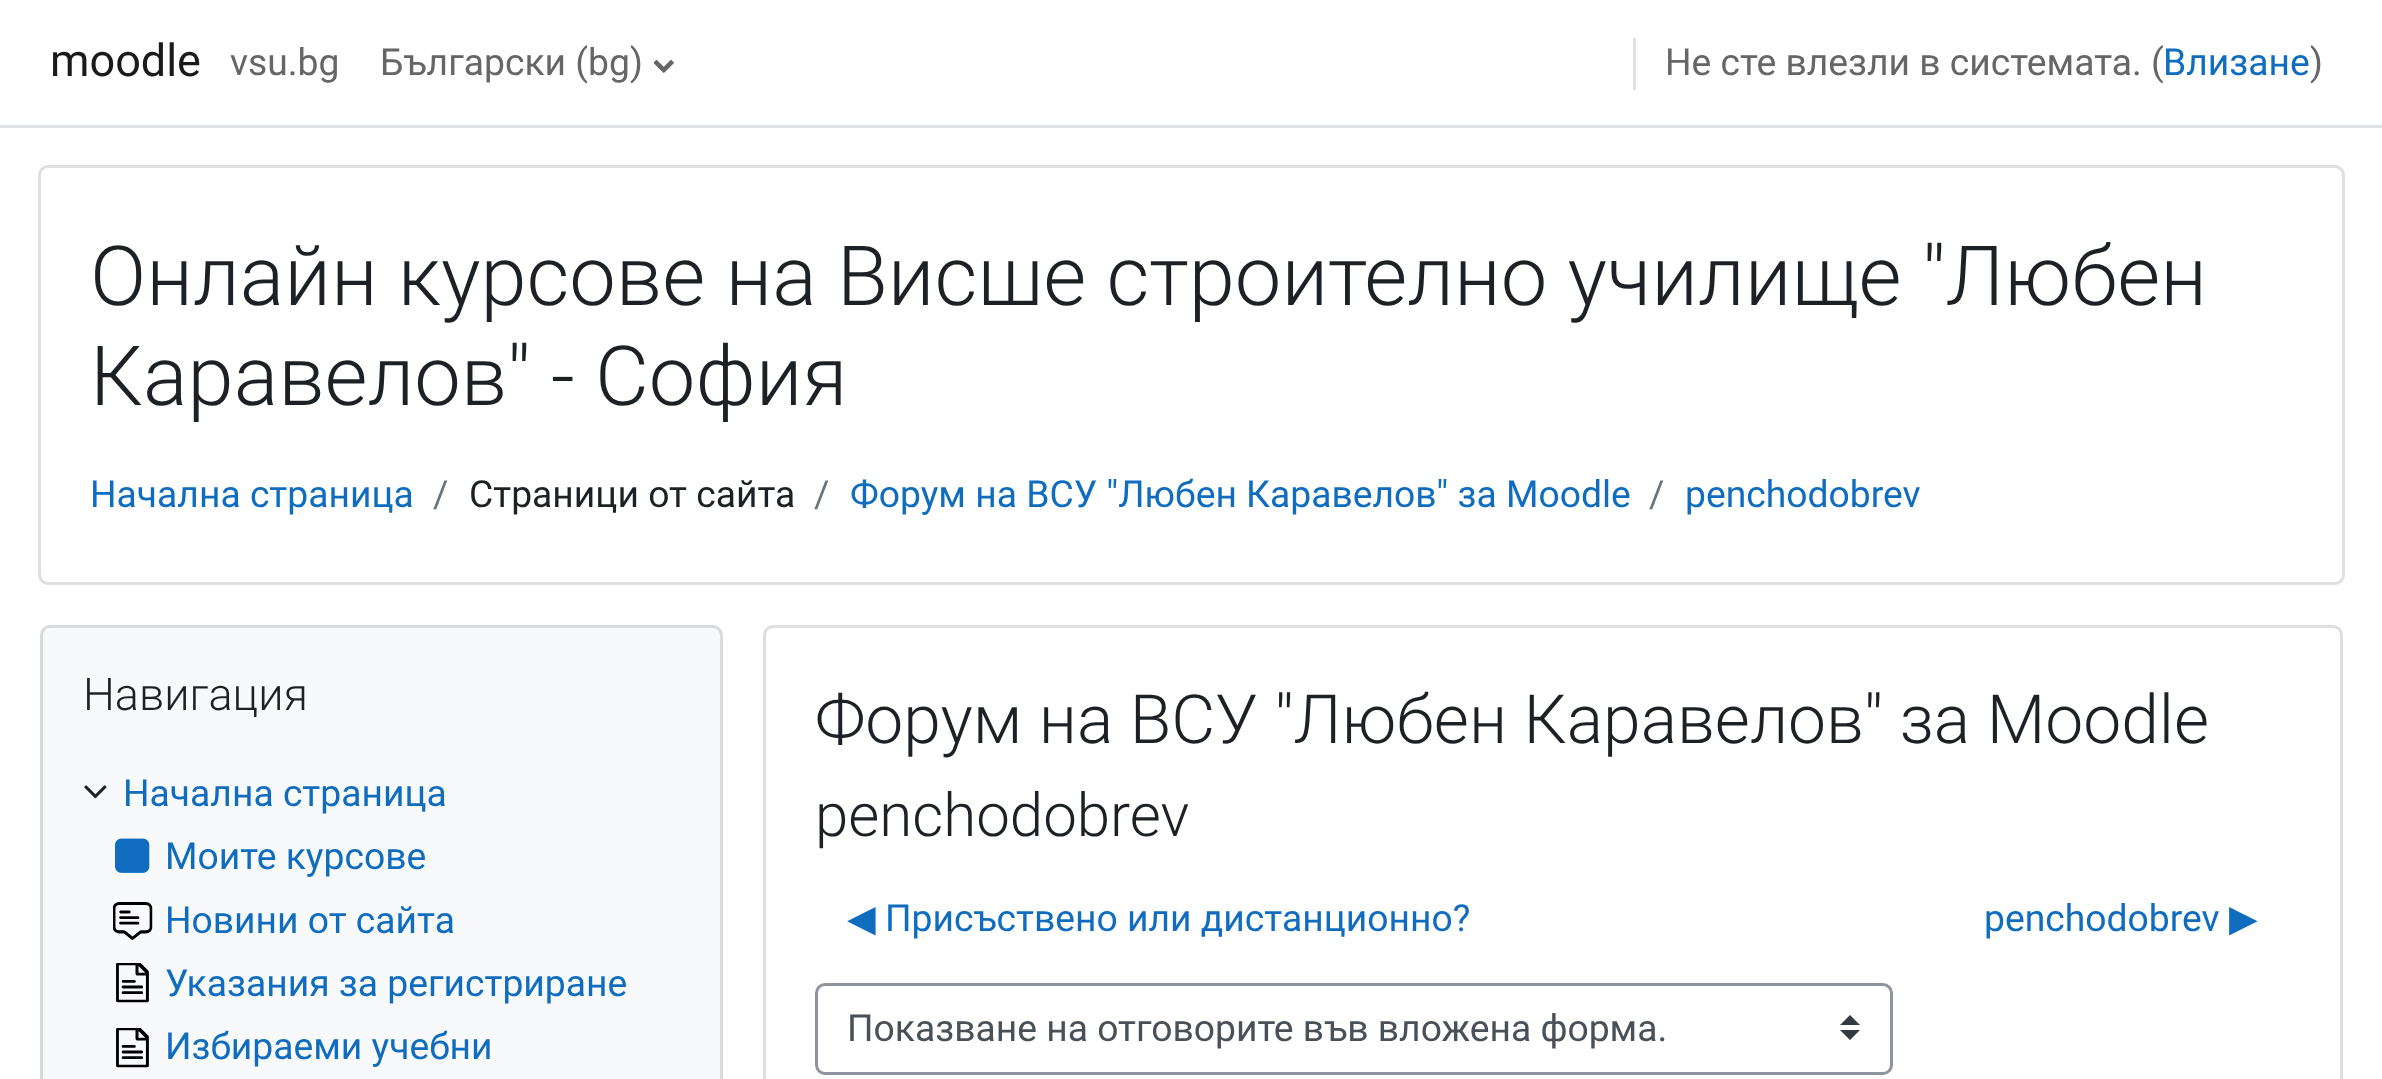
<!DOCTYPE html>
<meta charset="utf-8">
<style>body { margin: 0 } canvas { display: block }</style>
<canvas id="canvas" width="2382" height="1079"></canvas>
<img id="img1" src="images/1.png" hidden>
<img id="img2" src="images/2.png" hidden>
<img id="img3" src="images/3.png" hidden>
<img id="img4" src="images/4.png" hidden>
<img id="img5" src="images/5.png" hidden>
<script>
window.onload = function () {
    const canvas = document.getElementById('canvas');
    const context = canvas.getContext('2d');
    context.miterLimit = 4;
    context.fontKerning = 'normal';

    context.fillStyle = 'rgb(255, 255, 255)';
    context.fillRect(0, 0, 2382, 1079);
    context.fillStyle = 'rgb(222, 226, 230)';
    context.fillRect(0, 125, 2382, 3);
    context.drawImage(document.getElementById('img1'), 653, 60, 21, 13);
    context.fillRect(1633, 38, 3, 52);
    context.beginPath();
    context.roundRect(39.5, 166.5, 2304, 417, 8.5);
    context.strokeStyle = 'rgb(223, 223, 223)';
    context.lineWidth = 3;
    context.stroke();
    context.fillStyle = 'rgb(248, 249, 250)';
    context.beginPath();
    context.roundRect(40, 625, 683, 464, 10);
    context.fill();
    context.beginPath();
    context.roundRect(41.5, 626.5, 680, 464, 8.5);
    context.strokeStyle = 'rgba(0, 0, 0, 0.12)';
    context.stroke();
    context.drawImage(document.getElementById('img2'), 84, 785, 23, 14);
    context.drawImage(document.getElementById('img3'), 115, 838, 35, 35);
    context.drawImage(document.getElementById('img4'), 113, 902, 40, 38);
    context.drawImage(document.getElementById('img5'), 116, 963, 33, 40);
    context.drawImage(document.getElementById('img5'), 116, 1028, 33, 40);
    context.beginPath();
    context.roundRect(764.5, 626.5, 1577, 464, 8.5);
    context.strokeStyle = 'rgb(223, 223, 223)';
    context.stroke();
    context.fillStyle = 'rgb(52, 58, 64)';
    context.beginPath();
    context.moveTo(1850, 1015);
    context.lineTo(1840, 1025);
    context.lineTo(1860, 1025);
    context.closePath();
    context.moveTo(1850, 1040);
    context.lineTo(1840, 1030);
    context.lineTo(1860, 1030);
    context.closePath();
    context.fill();
    context.beginPath();
    context.roundRect(816.5, 984.5, 1075, 89, 8.5);
    context.strokeStyle = 'rgb(143, 149, 158)';
    context.stroke();
    context.font = '45px Roboto';
    context.fillStyle = 'rgb(26, 26, 26)';
    context.fillText('moodle', 50, 76);
    context.font = '37.25px Roboto';
    context.fillStyle = 'rgb(102, 102, 102)';
    context.fillText('vsu.bg', 230, 75);
    context.fillText('Български (bg)', 380, 75);
    context.fillText('Не сте влезли в системата. (', 1665, 75);
    context.fillStyle = 'rgb(15, 108, 191)';
    context.fillText('Влизане', 2163, 75);
    context.fillStyle = 'rgb(102, 102, 102)';
    context.fillText(')', 2310, 75);
    context.font = '300 83.05px Roboto';
    context.fillStyle = 'rgb(29, 33, 37)';
    context.fillText('Онлайн курсове на Висше строително училище "Любен', 90, 305);
    context.fillText('Каравелов" - София', 90, 405);
    context.font = '37.25px Roboto';
    context.fillStyle = 'rgb(15, 108, 191)';
    context.fillText('Начална страница', 90, 507);
    context.fillStyle = 'rgb(106, 115, 123)';
    context.fillText('/', 433, 507);
    context.fillStyle = 'rgb(29, 33, 37)';
    context.fillText('Страници от сайта', 469, 507);
    context.fillStyle = 'rgb(106, 115, 123)';
    context.fillText('/', 814, 507);
    context.fillStyle = 'rgb(15, 108, 191)';
    context.fillText('Форум на ВСУ "Любен Каравелов" за Moodle', 850, 507);
    context.fillStyle = 'rgb(106, 115, 123)';
    context.fillText('/', 1649, 507);
    context.fillStyle = 'rgb(15, 108, 191)';
    context.fillText('penchodobrev', 1685, 507);
    context.font = '300 45px Roboto';
    context.fillStyle = 'rgb(29, 33, 37)';
    context.fillText('Навигация', 83, 710);
    context.font = '37.25px Roboto';
    context.fillStyle = 'rgb(15, 108, 191)';
    context.fillText('Начална страница', 123, 806);
    context.fillText('Моите курсове', 165, 869);
    context.fillText('Новини от сайта', 165, 933);
    context.fillText('Указания за регистриране', 165, 996);
    context.fillText('Избираеми учебни', 165, 1059);
    context.font = '300 67.75px Roboto';
    context.fillStyle = 'rgb(29, 33, 37)';
    context.fillText('Форум на ВСУ "Любен Каравелов" за Moodle', 815, 743);
    context.font = '300 60px Roboto';
    context.fillText('penchodobrev', 815, 836);
    context.font = '37.25px DejaVu Sans';
    context.fillStyle = 'rgb(15, 108, 191)';
    context.fillText('◀︎', 847, 931);
    context.font = '37.25px Roboto';
    context.fillText('Присъствено или дистанционно?', 885, 931);
    context.fillText('penchodobrev', 1984, 931);
    context.font = '37.25px DejaVu Sans';
    context.fillText('▶︎', 2229, 931);
    context.font = '37.25px Roboto';
    context.fillStyle = 'rgb(73, 80, 87)';
    context.fillText('Показване на отговорите във вложена форма.', 847, 1041);
};
</script>
